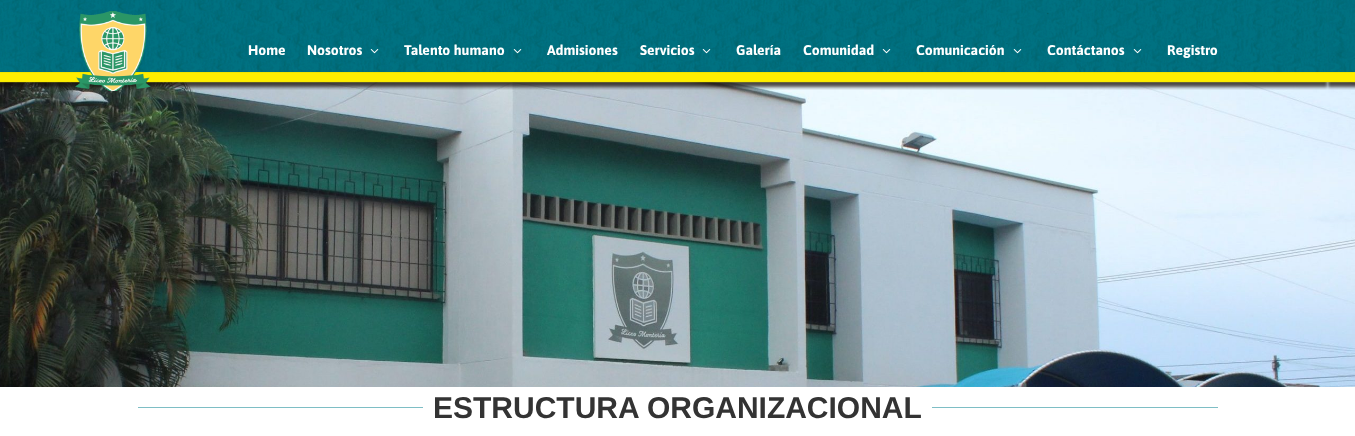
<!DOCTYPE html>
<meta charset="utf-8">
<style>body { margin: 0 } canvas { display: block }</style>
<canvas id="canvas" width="1355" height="436"></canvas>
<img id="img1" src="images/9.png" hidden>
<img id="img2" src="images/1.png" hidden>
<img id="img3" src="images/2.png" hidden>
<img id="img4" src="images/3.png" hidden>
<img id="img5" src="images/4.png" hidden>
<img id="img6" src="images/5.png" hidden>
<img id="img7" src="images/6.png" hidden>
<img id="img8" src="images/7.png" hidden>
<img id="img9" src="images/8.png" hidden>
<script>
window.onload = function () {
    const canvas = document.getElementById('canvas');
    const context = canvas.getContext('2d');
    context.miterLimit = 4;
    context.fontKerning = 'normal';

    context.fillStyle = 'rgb(255, 255, 255)';
    context.fillRect(0, 0, 1355, 436);
    context.drawImage(document.getElementById('img1'), 0, 82, 1355, 305);
    context.drawImage(document.getElementById('img2'), 0, 0, 1355, 90);
    context.drawImage(document.getElementById('img3'), 75, 11, 76, 80);
    context.drawImage(document.getElementById('img4'), 370, 49, 9, 5);
    context.drawImage(document.getElementById('img5'), 513, 49, 9, 5);
    context.drawImage(document.getElementById('img6'), 702, 49, 9, 5);
    context.drawImage(document.getElementById('img7'), 882, 49, 9, 5);
    context.drawImage(document.getElementById('img8'), 1013, 49, 9, 5);
    context.drawImage(document.getElementById('img9'), 1133, 49, 9, 5);
    context.fillStyle = 'rgb(126, 190, 197)';
    context.fillRect(138, 407, 285, 1);
    context.fillRect(932, 407, 286, 1);
    context.font = 'bold 14px Asap';
    context.fillStyle = 'rgb(255, 255, 255)';
    context.fillText('Home', 248, 55);
    context.fillText('Nosotros', 307, 55);
    context.fillText('Talento humano', 404, 55);
    context.fillText('Admisiones', 547, 55);
    context.fillText('Servicios', 640, 55);
    context.fillText('Galería', 736, 55);
    context.fillText('Comunidad', 803, 55);
    context.fillText('Comunicación', 916, 55);
    context.fillText('Contáctanos', 1047, 55);
    context.fillText('Registro', 1167, 55);
    context.font = 'bold 30px Liberation Sans';
    context.fillStyle = 'rgb(51, 51, 51)';
    context.fillText('ESTRUCTURA ORGANIZACIONAL', 433, 418);
};
</script>
